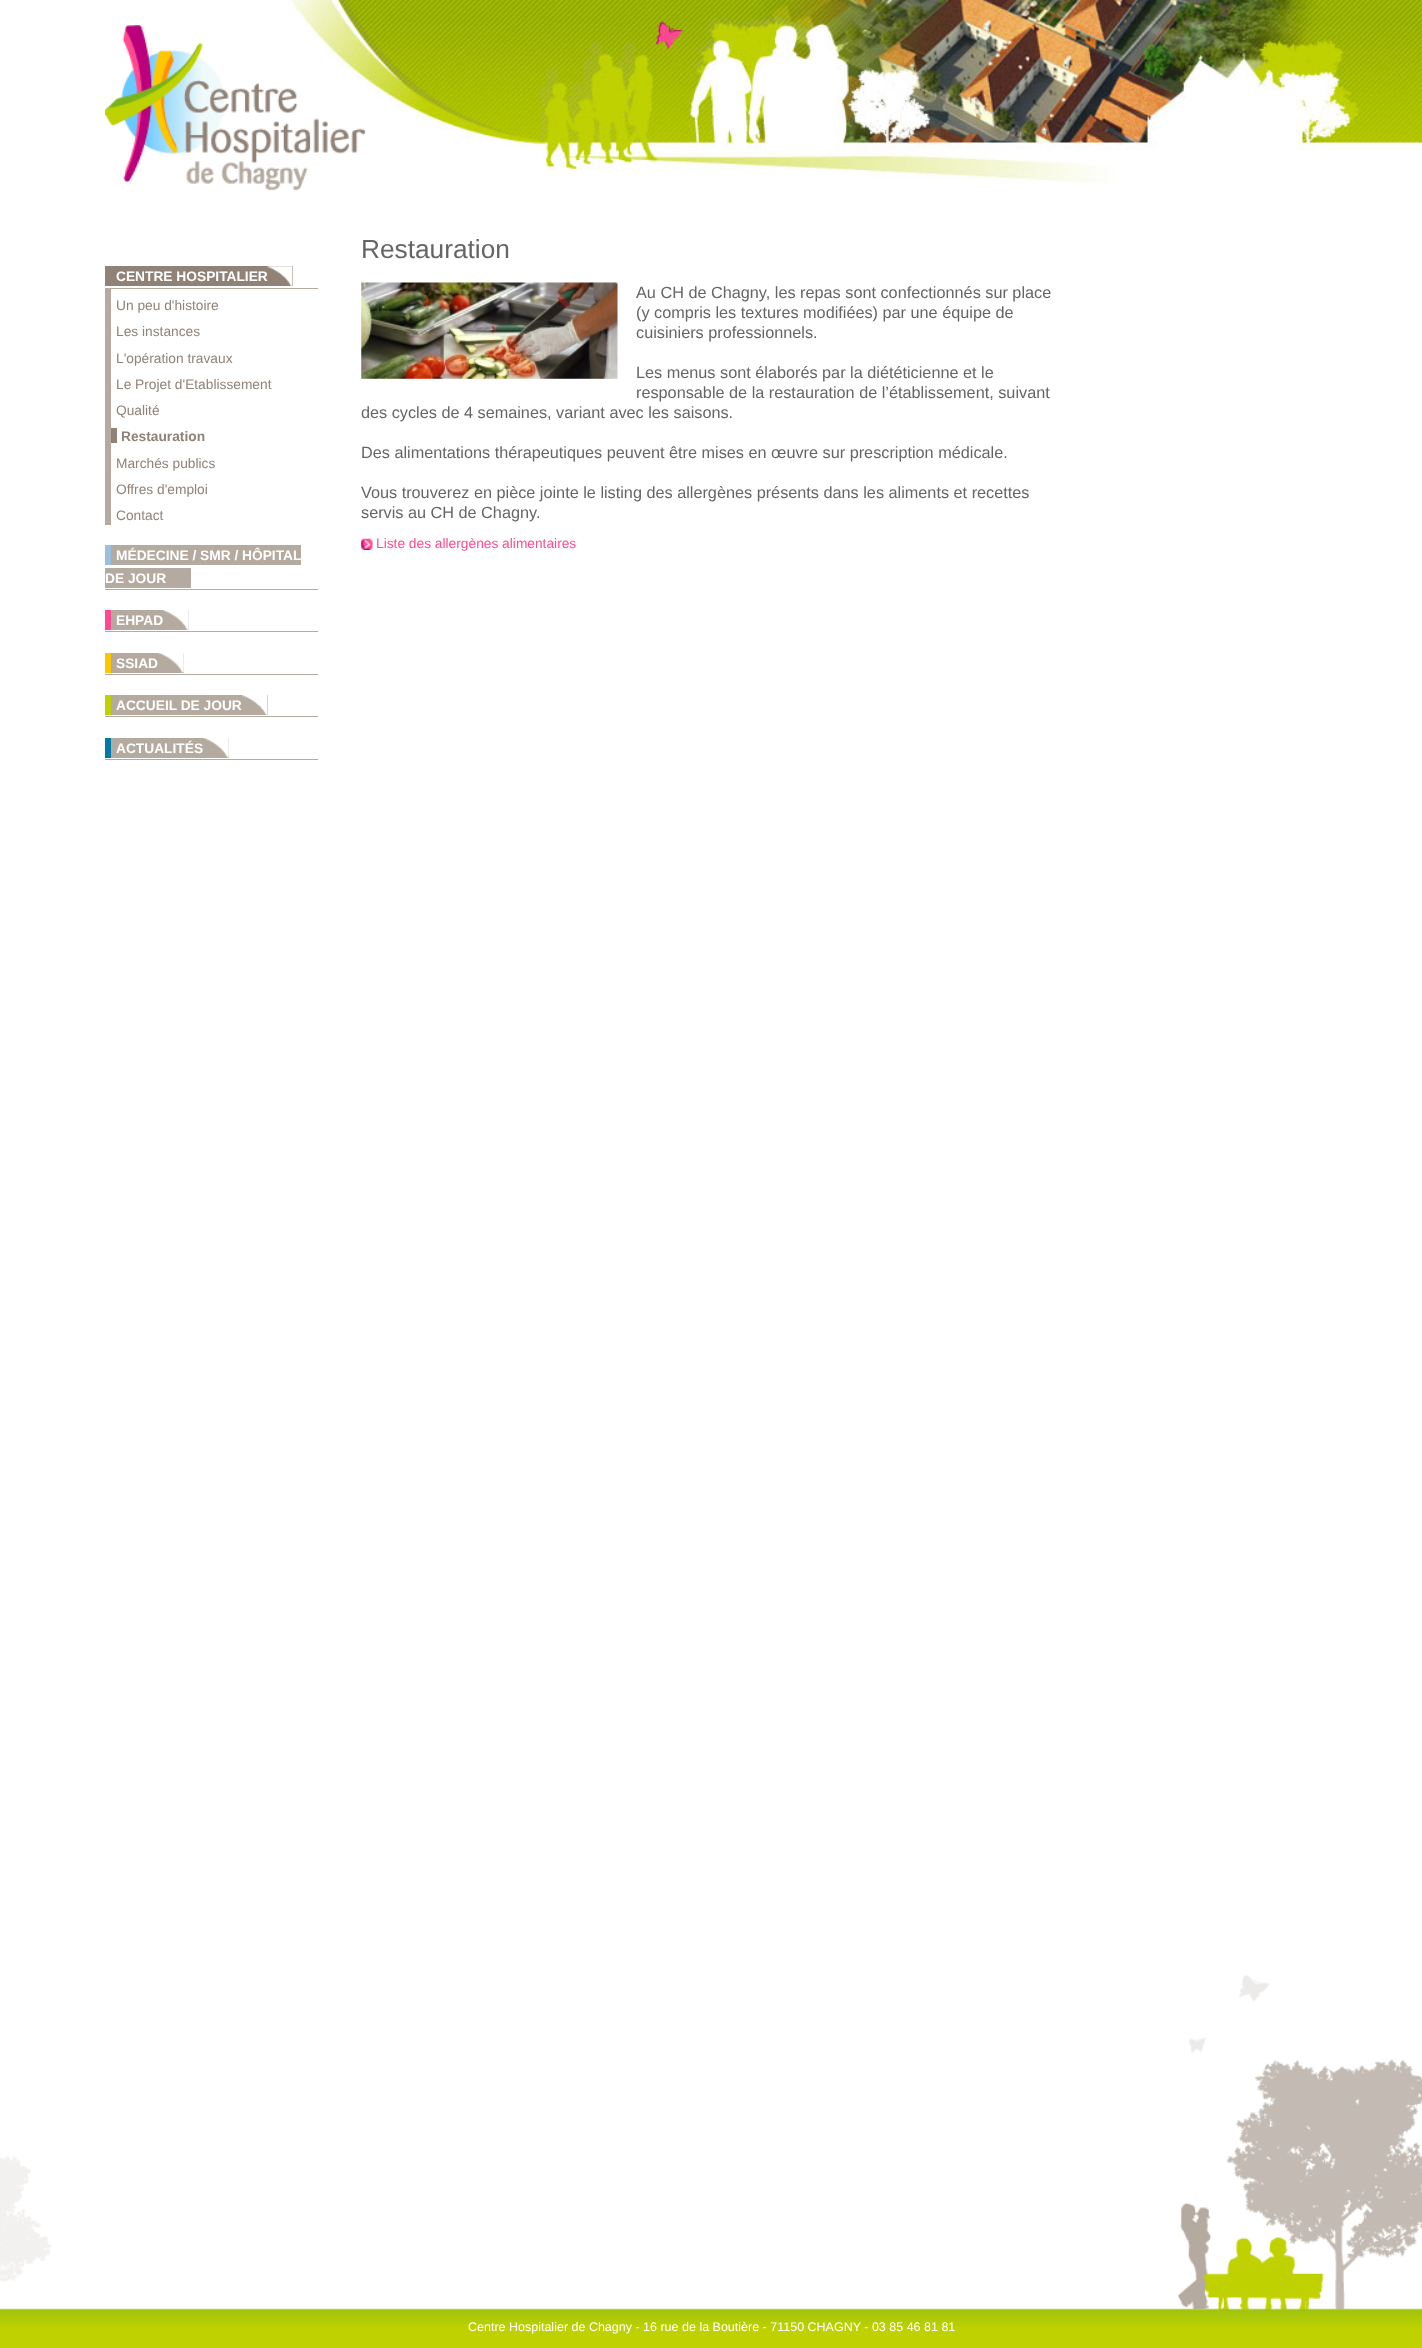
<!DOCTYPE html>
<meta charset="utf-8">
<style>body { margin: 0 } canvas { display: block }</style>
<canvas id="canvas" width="1422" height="2348"></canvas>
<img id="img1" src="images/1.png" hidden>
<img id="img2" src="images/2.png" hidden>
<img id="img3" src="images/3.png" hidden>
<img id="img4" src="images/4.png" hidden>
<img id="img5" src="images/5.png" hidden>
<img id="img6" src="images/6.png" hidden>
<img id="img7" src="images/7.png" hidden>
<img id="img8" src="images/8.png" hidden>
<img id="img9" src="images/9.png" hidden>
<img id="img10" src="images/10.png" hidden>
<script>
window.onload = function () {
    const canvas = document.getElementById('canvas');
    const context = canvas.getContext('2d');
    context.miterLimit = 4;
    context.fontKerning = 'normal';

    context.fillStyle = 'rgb(255, 255, 255)';
    context.fillRect(0, 0, 1422, 2348);
    context.drawImage(document.getElementById('img1'), 291, 0, 1131, 184);
    context.drawImage(document.getElementById('img2'), 105, 25, 261, 166);
    context.fillStyle = 'rgb(181, 170, 160)';
    context.fillRect(105, 288, 213, 1);
    context.fillStyle = 'rgb(145, 130, 119)';
    context.fillRect(105, 266, 188, 20);
    context.drawImage(document.getElementById('img3'), 267, 266, 26, 20);
    context.fillStyle = 'rgb(181, 170, 160)';
    context.fillRect(105, 289, 6, 236);
    context.fillStyle = 'rgb(145, 130, 119)';
    context.fillRect(111, 428, 6, 15);
    context.fillStyle = 'rgb(181, 170, 160)';
    context.fillRect(105, 589, 213, 1);
    context.fillRect(111, 545, 190, 20);
    context.fillStyle = 'rgb(153, 192, 225)';
    context.fillRect(105, 545, 6, 20);
    context.fillStyle = 'rgb(181, 170, 160)';
    context.fillRect(105, 568, 86, 20);
    context.fillRect(105, 631, 213, 1);
    context.fillRect(111, 610, 78, 20);
    context.fillStyle = 'rgb(255, 73, 145)';
    context.fillRect(105, 610, 6, 20);
    context.drawImage(document.getElementById('img4'), 163, 610, 26, 20);
    context.fillStyle = 'rgb(181, 170, 160)';
    context.fillRect(105, 674, 213, 1);
    context.fillRect(111, 653, 73, 20);
    context.fillStyle = 'rgb(255, 198, 0)';
    context.fillRect(105, 653, 6, 20);
    context.drawImage(document.getElementById('img5'), 158, 653, 26, 20);
    context.fillStyle = 'rgb(181, 170, 160)';
    context.fillRect(105, 716, 213, 1);
    context.fillRect(111, 695, 157, 20);
    context.fillStyle = 'rgb(191, 209, 0)';
    context.fillRect(105, 695, 6, 20);
    context.drawImage(document.getElementById('img6'), 242, 695, 26, 20);
    context.fillStyle = 'rgb(181, 170, 160)';
    context.fillRect(105, 759, 213, 1);
    context.fillRect(111, 738, 118, 20);
    context.fillStyle = 'rgb(0, 123, 165)';
    context.fillRect(105, 738, 6, 20);
    context.drawImage(document.getElementById('img7'), 203, 738, 26, 20);
    context.drawImage(document.getElementById('img8'), 361, 282, 257, 97);
    context.drawImage(document.getElementById('img9'), 361, 538, 12, 12);
    context.drawImage(document.getElementById('img10'), 0, 1975, 1422, 373);
    context.font = 'bold 13.75px Liberation Sans';
    context.fillStyle = 'rgb(255, 255, 255)';
    context.fillText('CENTRE HOSPITALIER', 116, 281);
    context.font = '13.75px Liberation Sans';
    context.fillStyle = 'rgb(145, 130, 120)';
    context.fillText('Un peu d\'histoire', 116, 310);
    context.fillText('Les instances', 116, 336);
    context.fillText('L\'opération travaux', 116, 363);
    context.fillText('Le Projet d\'Etablissement', 116, 389);
    context.fillText('Qualité', 116, 415);
    context.font = 'bold 13.75px Liberation Sans';
    context.fillText('Restauration', 121, 441);
    context.font = '13.75px Liberation Sans';
    context.fillText('Marchés publics', 116, 468);
    context.fillText('Offres d\'emploi', 116, 494);
    context.fillText('Contact', 116, 520);
    context.font = 'bold 13.75px Liberation Sans';
    context.fillStyle = 'rgb(255, 255, 255)';
    context.fillText('MÉDECINE / SMR / HÔPITAL', 116, 560);
    context.fillText('DE JOUR', 105, 583);
    context.fillText('EHPAD', 116, 625);
    context.fillText('SSIAD', 116, 668);
    context.fillText('ACCUEIL DE JOUR', 116, 710);
    context.fillText('ACTUALITÉS', 116, 753);
    context.font = '26.25px Liberation Sans';
    context.fillStyle = 'rgb(101, 101, 101)';
    context.fillText('Restauration', 361, 258);
    context.font = '16.25px Liberation Sans';
    context.fillText('Au CH de Chagny, les repas sont confectionnés sur place', 636, 298);
    context.fillText('(y compris les textures modifiées) par une équipe de', 636, 318);
    context.fillText('cuisiniers professionnels.', 636, 338);
    context.fillText('Les menus sont élaborés par la diététicienne et le', 636, 378);
    context.fillText('responsable de la restauration de l’établissement, suivant', 636, 398);
    context.fillText('des cycles de 4 semaines, variant avec les saisons.', 361, 418);
    context.fillText('Des alimentations thérapeutiques peuvent être mises en œuvre sur prescription médicale.', 361, 458);
    context.fillText('Vous trouverez en pièce jointe le listing des allergènes présents dans les aliments et recettes', 361, 498);
    context.fillText('servis au CH de Chagny.', 361, 518);
    context.font = '13.75px Liberation Sans';
    context.fillStyle = 'rgb(255, 75, 145)';
    context.fillText('Liste des allergènes alimentaires', 376, 548);
    context.font = '12.5px Liberation Sans';
    context.fillStyle = 'rgb(255, 255, 255)';
    context.fillText('Centre Hospitalier de Chagny - 16 rue de la Boutière - 71150 CHAGNY - 03 85 46 81 81', 468, 2331);
};
</script>
